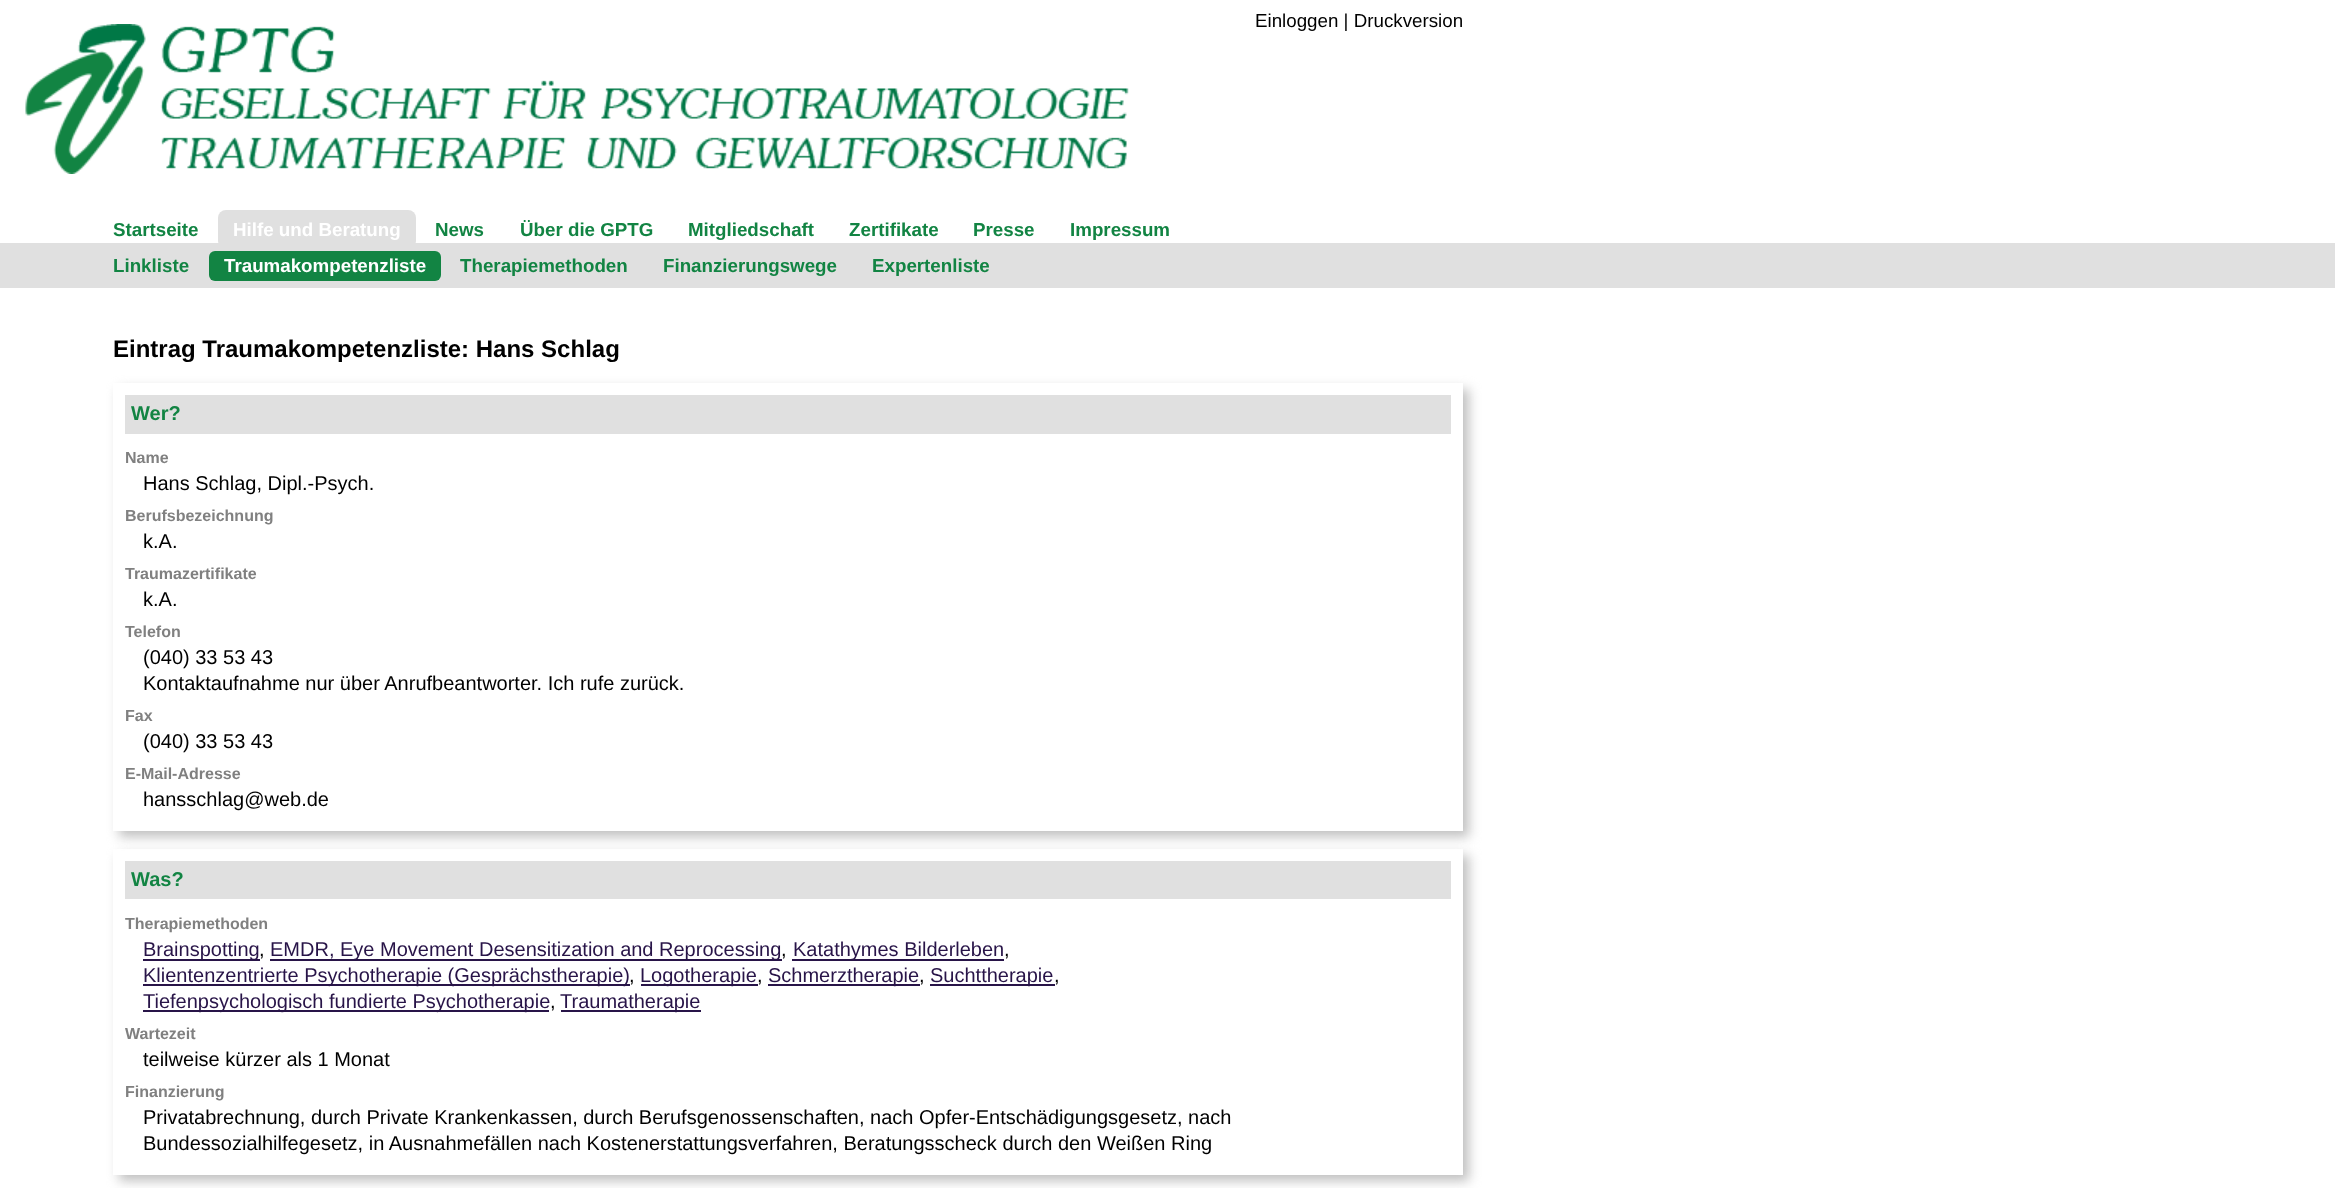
<!DOCTYPE html>
<meta charset="utf-8">
<style>body { margin: 0 } canvas { display: block }</style>
<canvas id="canvas" width="2335" height="1188"></canvas>
<img id="img1" src="images/1.png" hidden>
<script>
window.onload = function () {
    const canvas = document.getElementById('canvas');
    const context = canvas.getContext('2d');
    context.miterLimit = 4;
    context.fontKerning = 'normal';

    context.fillStyle = 'rgb(255, 255, 255)';
    context.fillRect(0, 0, 2335, 1188);
    context.drawImage(document.getElementById('img1'), 25, 24, 1104, 150);
    context.fillStyle = 'rgb(224, 224, 224)';
    context.fillRect(0, 243, 2335, 45);
    context.beginPath();
    context.roundRect(218, 210, 198, 39, 8);
    context.fill();
    context.fillStyle = 'rgb(18, 132, 67)';
    context.beginPath();
    context.roundRect(209, 251, 232, 30, 6);
    context.fill();
    context.save();
    context.beginPath();
    context.moveTo(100, 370);
    context.lineTo(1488, 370);
    context.lineTo(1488, 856);
    context.lineTo(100, 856);
    context.closePath();
    context.moveTo(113, 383);
    context.lineTo(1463, 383);
    context.lineTo(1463, 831);
    context.lineTo(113, 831);
    context.closePath();
    context.clip('evenodd');
    context.fillStyle = 'rgb(192, 192, 192)';
    context.filter = 'blur(6px)';
    context.beginPath();
    context.rect(119, 389, 1350, 448);
    context.fill();
    context.filter = 'none';
    context.restore();
    context.fillStyle = 'rgb(224, 224, 224)';
    context.fillRect(125, 395, 1326, 39);
    context.save();
    context.beginPath();
    context.moveTo(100, 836);
    context.lineTo(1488, 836);
    context.lineTo(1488, 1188);
    context.lineTo(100, 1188);
    context.closePath();
    context.moveTo(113, 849);
    context.lineTo(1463, 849);
    context.lineTo(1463, 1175);
    context.lineTo(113, 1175);
    context.closePath();
    context.clip('evenodd');
    context.fillStyle = 'rgb(192, 192, 192)';
    context.filter = 'blur(6px)';
    context.beginPath();
    context.rect(119, 855, 1350, 326);
    context.fill();
    context.filter = 'none';
    context.restore();
    context.fillRect(125, 861, 1326, 38);
    context.fillStyle = 'rgb(40, 20, 72)';
    context.fillRect(143, 959, 117, 2);
    context.fillRect(270, 959, 512, 2);
    context.fillRect(792, 959, 212, 2);
    context.fillRect(143, 984, 487, 2);
    context.fillRect(641, 984, 117, 2);
    context.fillRect(768, 984, 152, 2);
    context.fillRect(930, 984, 125, 2);
    context.fillRect(143, 1010, 406, 2);
    context.fillRect(561, 1010, 140, 2);
    context.font = '18.75px Liberation Sans';
    context.fillStyle = 'rgb(0, 0, 0)';
    context.fillText('Einloggen | Druckversion', 1255, 27);
    context.font = 'bold 18.75px Liberation Sans';
    context.fillStyle = 'rgb(18, 132, 67)';
    context.fillText('Startseite', 113, 236);
    context.fillStyle = 'rgb(255, 255, 255)';
    context.fillText('Hilfe und Beratung', 233, 236);
    context.fillStyle = 'rgb(18, 132, 67)';
    context.fillText('News', 435, 236);
    context.fillText('Über die GPTG', 520, 236);
    context.fillText('Mitgliedschaft', 688, 236);
    context.fillText('Zertifikate', 849, 236);
    context.fillText('Presse', 973, 236);
    context.fillText('Impressum', 1070, 236);
    context.fillText('Linkliste', 113, 272);
    context.fillStyle = 'rgb(255, 255, 255)';
    context.fillText('Traumakompetenzliste', 224, 272);
    context.fillStyle = 'rgb(18, 132, 67)';
    context.fillText('Therapiemethoden', 460, 272);
    context.fillText('Finanzierungswege', 663, 272);
    context.fillText('Expertenliste', 872, 272);
    context.font = 'bold 24px Liberation Sans';
    context.fillStyle = 'rgb(0, 0, 0)';
    context.fillText('Eintrag Traumakompetenzliste: Hans Schlag', 113, 357);
    context.font = 'bold 20px Liberation Sans';
    context.fillStyle = 'rgb(18, 132, 67)';
    context.fillText('Wer?', 131, 420);
    context.font = 'bold 16px Liberation Sans';
    context.fillStyle = 'rgb(128, 128, 128)';
    context.fillText('Name', 125, 463);
    context.font = '20px Liberation Sans';
    context.fillStyle = 'rgb(0, 0, 0)';
    context.fillText('Hans Schlag, Dipl.-Psych.', 143, 490);
    context.font = 'bold 16px Liberation Sans';
    context.fillStyle = 'rgb(128, 128, 128)';
    context.fillText('Berufsbezeichnung', 125, 521);
    context.font = '20px Liberation Sans';
    context.fillStyle = 'rgb(0, 0, 0)';
    context.fillText('k.A.', 143, 548);
    context.font = 'bold 16px Liberation Sans';
    context.fillStyle = 'rgb(128, 128, 128)';
    context.fillText('Traumazertifikate', 125, 579);
    context.font = '20px Liberation Sans';
    context.fillStyle = 'rgb(0, 0, 0)';
    context.fillText('k.A.', 143, 606);
    context.font = 'bold 16px Liberation Sans';
    context.fillStyle = 'rgb(128, 128, 128)';
    context.fillText('Telefon', 125, 637);
    context.font = '20px Liberation Sans';
    context.fillStyle = 'rgb(0, 0, 0)';
    context.fillText('(040) 33 53 43', 143, 664);
    context.fillText('Kontaktaufnahme nur über Anrufbeantworter. Ich rufe zurück.', 143, 690);
    context.font = 'bold 16px Liberation Sans';
    context.fillStyle = 'rgb(128, 128, 128)';
    context.fillText('Fax', 125, 721);
    context.font = '20px Liberation Sans';
    context.fillStyle = 'rgb(0, 0, 0)';
    context.fillText('(040) 33 53 43', 143, 748);
    context.font = 'bold 16px Liberation Sans';
    context.fillStyle = 'rgb(128, 128, 128)';
    context.fillText('E-Mail-Adresse', 125, 779);
    context.font = '20px Liberation Sans';
    context.fillStyle = 'rgb(0, 0, 0)';
    context.fillText('hansschlag@web.de', 143, 806);
    context.font = 'bold 20px Liberation Sans';
    context.fillStyle = 'rgb(18, 132, 67)';
    context.fillText('Was?', 131, 886);
    context.font = 'bold 16px Liberation Sans';
    context.fillStyle = 'rgb(128, 128, 128)';
    context.fillText('Therapiemethoden', 125, 929);
    context.font = '20px Liberation Sans';
    context.fillStyle = 'rgb(40, 20, 72)';
    context.fillText('Brainspotting', 143, 956);
    context.fillStyle = 'rgb(0, 0, 0)';
    context.fillText(',', 259, 956);
    context.fillStyle = 'rgb(40, 20, 72)';
    context.fillText('EMDR, Eye Movement Desensitization and Reprocessing', 270, 956);
    context.fillStyle = 'rgb(0, 0, 0)';
    context.fillText(',', 781, 956);
    context.fillStyle = 'rgb(40, 20, 72)';
    context.fillText('Katathymes Bilderleben', 793, 956);
    context.fillStyle = 'rgb(0, 0, 0)';
    context.fillText(',', 1004, 956);
    context.fillStyle = 'rgb(40, 20, 72)';
    context.fillText('Klientenzentrierte Psychotherapie (Gesprächstherapie)', 143, 982);
    context.fillStyle = 'rgb(0, 0, 0)';
    context.fillText(',', 629, 982);
    context.fillStyle = 'rgb(40, 20, 72)';
    context.fillText('Logotherapie', 640, 982);
    context.fillStyle = 'rgb(0, 0, 0)';
    context.fillText(',', 757, 982);
    context.fillStyle = 'rgb(40, 20, 72)';
    context.fillText('Schmerztherapie', 768, 982);
    context.fillStyle = 'rgb(0, 0, 0)';
    context.fillText(',', 919, 982);
    context.fillStyle = 'rgb(40, 20, 72)';
    context.fillText('Suchttherapie', 930, 982);
    context.fillStyle = 'rgb(0, 0, 0)';
    context.fillText(',', 1054, 982);
    context.fillStyle = 'rgb(40, 20, 72)';
    context.fillText('Tiefenpsychologisch fundierte Psychotherapie', 143, 1008);
    context.fillStyle = 'rgb(0, 0, 0)';
    context.fillText(',', 550, 1008);
    context.fillStyle = 'rgb(40, 20, 72)';
    context.fillText('Traumatherapie', 560, 1008);
    context.font = 'bold 16px Liberation Sans';
    context.fillStyle = 'rgb(128, 128, 128)';
    context.fillText('Wartezeit', 125, 1039);
    context.font = '20px Liberation Sans';
    context.fillStyle = 'rgb(0, 0, 0)';
    context.fillText('teilweise kürzer als 1 Monat', 143, 1066);
    context.font = 'bold 16px Liberation Sans';
    context.fillStyle = 'rgb(128, 128, 128)';
    context.fillText('Finanzierung', 125, 1097);
    context.font = '20px Liberation Sans';
    context.fillStyle = 'rgb(0, 0, 0)';
    context.fillText('Privatabrechnung, durch Private Krankenkassen, durch Berufsgenossenschaften, nach Opfer-Entschädigungsgesetz, nach', 143, 1124);
    context.fillText('Bundessozialhilfegesetz, in Ausnahmefällen nach Kostenerstattungsverfahren, Beratungsscheck durch den Weißen Ring', 143, 1150);
};
</script>
